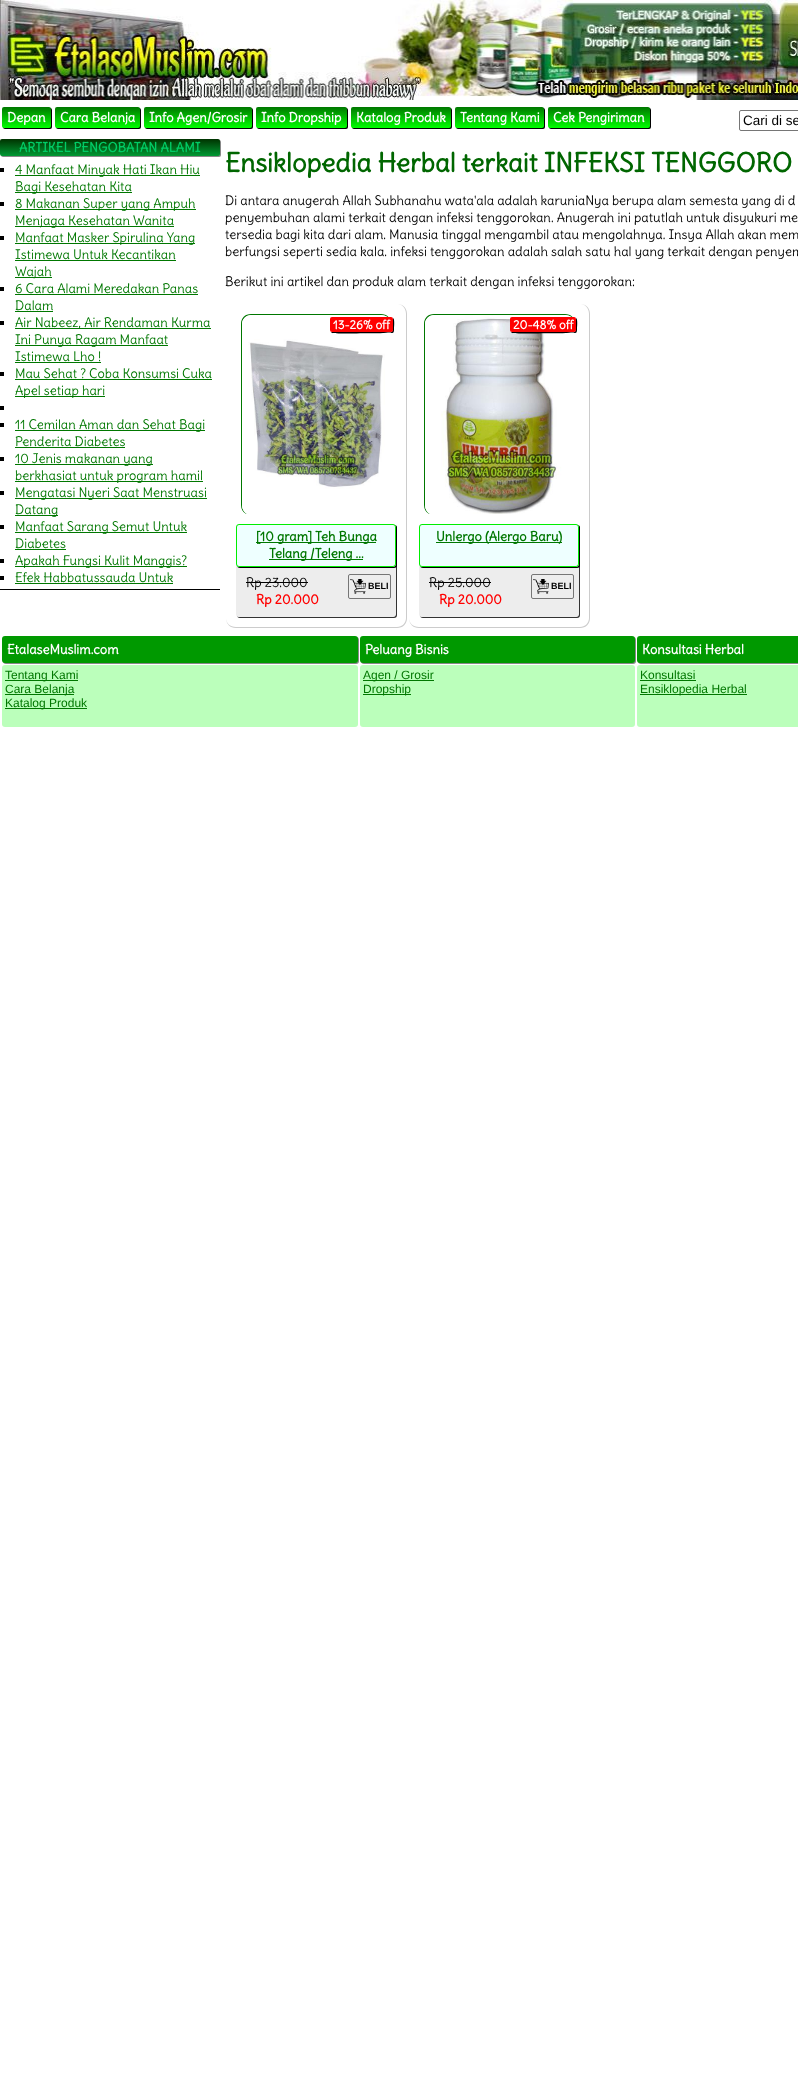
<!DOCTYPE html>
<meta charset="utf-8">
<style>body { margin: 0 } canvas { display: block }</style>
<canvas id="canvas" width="798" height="2073"></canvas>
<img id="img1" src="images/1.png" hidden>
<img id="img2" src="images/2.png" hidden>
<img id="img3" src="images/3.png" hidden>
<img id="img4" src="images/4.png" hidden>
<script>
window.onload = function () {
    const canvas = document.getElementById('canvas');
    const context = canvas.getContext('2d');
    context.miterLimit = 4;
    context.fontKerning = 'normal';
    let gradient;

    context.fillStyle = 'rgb(255, 255, 255)';
    context.fillRect(0, 0, 798, 2073);
    context.drawImage(document.getElementById('img1'), 0, 0, 798, 100);
    context.fillStyle = 'rgb(0, 0, 0)';
    context.filter = 'blur(0.5px)';
    context.beginPath();
    context.roundRect(3, 108, 49, 21, 2);
    context.fill();
    context.filter = 'none';
    gradient = context.createLinearGradient(27, 107, 27, 128);
    gradient.addColorStop(0, 'rgb(0, 119, 0)');
    gradient.addColorStop(1, 'rgb(0, 255, 0)');
    context.fillStyle = gradient;
    context.beginPath();
    context.roundRect(2, 107, 49, 21, 2);
    context.fill();
    context.fillStyle = 'rgb(0, 0, 0)';
    context.filter = 'blur(0.5px)';
    context.beginPath();
    context.roundRect(56, 108, 85, 21, 2);
    context.fill();
    context.filter = 'none';
    gradient = context.createLinearGradient(98, 107, 98, 128);
    gradient.addColorStop(0, 'rgb(0, 119, 0)');
    gradient.addColorStop(1, 'rgb(0, 255, 0)');
    context.fillStyle = gradient;
    context.beginPath();
    context.roundRect(55, 107, 85, 21, 2);
    context.fill();
    context.fillStyle = 'rgb(0, 0, 0)';
    context.filter = 'blur(0.5px)';
    context.beginPath();
    context.roundRect(145, 108, 108, 21, 2);
    context.fill();
    context.filter = 'none';
    gradient = context.createLinearGradient(198, 107, 198, 128);
    gradient.addColorStop(0, 'rgb(0, 119, 0)');
    gradient.addColorStop(1, 'rgb(0, 255, 0)');
    context.fillStyle = gradient;
    context.beginPath();
    context.roundRect(144, 107, 108, 21, 2);
    context.fill();
    context.fillStyle = 'rgb(0, 0, 0)';
    context.filter = 'blur(0.5px)';
    context.beginPath();
    context.roundRect(257, 108, 91, 21, 2);
    context.fill();
    context.filter = 'none';
    gradient = context.createLinearGradient(302, 107, 302, 128);
    gradient.addColorStop(0, 'rgb(0, 119, 0)');
    gradient.addColorStop(1, 'rgb(0, 255, 0)');
    context.fillStyle = gradient;
    context.beginPath();
    context.roundRect(256, 107, 91, 21, 2);
    context.fill();
    context.fillStyle = 'rgb(0, 0, 0)';
    context.filter = 'blur(0.5px)';
    context.beginPath();
    context.roundRect(352, 108, 100, 21, 2);
    context.fill();
    context.filter = 'none';
    gradient = context.createLinearGradient(401, 107, 401, 128);
    gradient.addColorStop(0, 'rgb(0, 119, 0)');
    gradient.addColorStop(1, 'rgb(0, 255, 0)');
    context.fillStyle = gradient;
    context.beginPath();
    context.roundRect(351, 107, 100, 21, 2);
    context.fill();
    context.fillStyle = 'rgb(0, 0, 0)';
    context.filter = 'blur(0.5px)';
    context.beginPath();
    context.roundRect(456, 108, 89, 21, 2);
    context.fill();
    context.filter = 'none';
    gradient = context.createLinearGradient(500, 107, 500, 128);
    gradient.addColorStop(0, 'rgb(0, 119, 0)');
    gradient.addColorStop(1, 'rgb(0, 255, 0)');
    context.fillStyle = gradient;
    context.beginPath();
    context.roundRect(455, 107, 89, 21, 2);
    context.fill();
    context.fillStyle = 'rgb(0, 0, 0)';
    context.filter = 'blur(0.5px)';
    context.beginPath();
    context.roundRect(549, 108, 102, 21, 2);
    context.fill();
    context.filter = 'none';
    gradient = context.createLinearGradient(599, 107, 599, 128);
    gradient.addColorStop(0, 'rgb(0, 119, 0)');
    gradient.addColorStop(1, 'rgb(0, 255, 0)');
    context.fillStyle = gradient;
    context.beginPath();
    context.roundRect(548, 107, 102, 21, 2);
    context.fill();
    context.beginPath();
    context.roundRect(739.5, 110.5, 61, 20, 1.5);
    context.strokeStyle = 'rgb(118, 118, 118)';
    context.stroke();
    context.fillStyle = 'rgb(0, 0, 0)';
    context.fillRect(0, 589, 220, 1);
    context.fillStyle = 'rgb(136, 136, 136)';
    context.filter = 'blur(0.5px)';
    context.beginPath();
    context.roundRect(1, 140, 220, 17, 2);
    context.fill();
    context.filter = 'none';
    gradient = context.createLinearGradient(110, 139, 110, 156);
    gradient.addColorStop(0, 'rgb(0, 51, 0)');
    gradient.addColorStop(1, 'rgb(0, 153, 51)');
    context.fillStyle = gradient;
    context.beginPath();
    context.roundRect(0, 139, 220, 17, 2);
    context.fill();
    context.fillStyle = 'rgb(0, 0, 0)';
    context.fillRect(0, 168, 4, 4);
    context.fillStyle = 'rgb(0, 119, 0)';
    context.fillRect(15, 175, 185, 1);
    context.fillRect(15, 192, 117, 1);
    context.fillStyle = 'rgb(0, 0, 0)';
    context.fillRect(0, 202, 4, 4);
    context.fillStyle = 'rgb(0, 119, 0)';
    context.fillRect(15, 209, 181, 1);
    context.fillRect(15, 226, 159, 1);
    context.fillStyle = 'rgb(0, 0, 0)';
    context.fillRect(0, 236, 4, 4);
    context.fillStyle = 'rgb(0, 119, 0)';
    context.fillRect(15, 243, 180, 1);
    context.fillRect(15, 260, 161, 1);
    context.fillRect(15, 277, 37, 1);
    context.fillStyle = 'rgb(0, 0, 0)';
    context.fillRect(0, 287, 4, 4);
    context.fillStyle = 'rgb(0, 119, 0)';
    context.fillRect(15, 294, 183, 1);
    context.fillRect(15, 311, 38, 1);
    context.fillStyle = 'rgb(0, 0, 0)';
    context.fillRect(0, 321, 4, 4);
    context.fillStyle = 'rgb(0, 119, 0)';
    context.fillRect(15, 328, 196, 1);
    context.fillRect(15, 345, 153, 1);
    context.fillRect(15, 362, 86, 1);
    context.fillStyle = 'rgb(0, 0, 0)';
    context.fillRect(0, 372, 4, 4);
    context.fillStyle = 'rgb(0, 119, 0)';
    context.fillRect(15, 379, 197, 1);
    context.fillRect(15, 396, 90, 1);
    context.fillStyle = 'rgb(0, 0, 0)';
    context.fillRect(0, 406, 4, 4);
    context.fillRect(0, 423, 4, 4);
    context.fillStyle = 'rgb(0, 119, 0)';
    context.fillRect(15, 430, 190, 1);
    context.fillRect(15, 447, 110, 1);
    context.fillStyle = 'rgb(0, 0, 0)';
    context.fillRect(0, 457, 4, 4);
    context.fillStyle = 'rgb(0, 119, 0)';
    context.fillRect(15, 464, 138, 1);
    context.fillRect(15, 481, 188, 1);
    context.fillStyle = 'rgb(0, 0, 0)';
    context.fillRect(0, 491, 4, 4);
    context.fillStyle = 'rgb(0, 119, 0)';
    context.fillRect(15, 498, 192, 1);
    context.fillRect(15, 515, 43, 1);
    context.fillStyle = 'rgb(0, 0, 0)';
    context.fillRect(0, 525, 4, 4);
    context.fillStyle = 'rgb(0, 119, 0)';
    context.fillRect(15, 532, 172, 1);
    context.fillRect(15, 549, 51, 1);
    context.fillStyle = 'rgb(0, 0, 0)';
    context.fillRect(0, 559, 4, 4);
    context.fillStyle = 'rgb(0, 119, 0)';
    context.fillRect(15, 566, 172, 1);
    context.fillStyle = 'rgb(0, 0, 0)';
    context.fillRect(0, 576, 4, 4);
    context.fillStyle = 'rgb(0, 119, 0)';
    context.fillRect(15, 583, 158, 1);
    context.fillStyle = 'rgb(204, 204, 204)';
    context.beginPath();
    context.moveTo(236, 304);
    context.lineTo(397, 304);
    context.bezierCurveTo(403, 304, 407, 308, 407, 314);
    context.lineTo(407, 618);
    context.bezierCurveTo(407, 624, 403, 628, 397, 628);
    context.lineTo(236, 628);
    context.bezierCurveTo(230, 628, 226, 624, 226, 618);
    context.lineTo(226, 314);
    context.bezierCurveTo(226, 308, 230, 304, 236, 304);
    context.closePath();
    context.moveTo(236, 304);
    context.lineTo(397, 304);
    context.bezierCurveTo(402, 304, 406, 308, 406, 314);
    context.lineTo(406, 618);
    context.bezierCurveTo(406, 623, 402, 627, 397, 627);
    context.lineTo(236, 627);
    context.bezierCurveTo(230, 627, 226, 623, 226, 618);
    context.lineTo(226, 314);
    context.bezierCurveTo(226, 308, 230, 304, 236, 304);
    context.closePath();
    context.fill('evenodd');
    context.save();
    context.beginPath();
    context.rect(236, 314, 160, 200);
    context.clip();
    context.fillStyle = 'rgb(0, 119, 0)';
    context.beginPath();
    context.moveTo(251, 314);
    context.lineTo(381, 314);
    context.bezierCurveTo(387, 314, 391, 318, 391, 324);
    context.lineTo(391, 505);
    context.bezierCurveTo(391, 511, 387, 515, 381, 515);
    context.lineTo(251, 515);
    context.bezierCurveTo(245, 515, 241, 511, 241, 505);
    context.lineTo(241, 324);
    context.bezierCurveTo(241, 318, 245, 314, 251, 314);
    context.closePath();
    context.moveTo(251, 315);
    context.lineTo(381, 315);
    context.bezierCurveTo(387, 315, 391, 319, 391, 324);
    context.lineTo(391, 505);
    context.bezierCurveTo(391, 511, 387, 515, 381, 515);
    context.lineTo(251, 515);
    context.bezierCurveTo(246, 515, 242, 511, 242, 505);
    context.lineTo(242, 324);
    context.bezierCurveTo(242, 319, 246, 315, 251, 315);
    context.closePath();
    context.fill('evenodd');
    context.restore();
    context.drawImage(document.getElementById('img2'), 242, 315, 149, 199);
    context.fillStyle = 'rgb(0, 0, 0)';
    context.beginPath();
    context.moveTo(331, 332);
    context.lineTo(332, 333);
    context.bezierCurveTo(333, 334, 386, 333, 392, 333);
    context.bezierCurveTo(394, 333, 394, 331, 394, 329);
    context.bezierCurveTo(394, 327, 395, 319, 393, 318);
    context.lineTo(393, 326);
    context.bezierCurveTo(393, 335, 391, 332, 381, 332);
    context.closePath();
    context.fill();
    context.fillStyle = 'rgb(255, 0, 0)';
    context.beginPath();
    context.roundRect(330, 317, 63, 15, 2);
    context.fill();
    context.save();
    context.beginPath();
    context.moveTo(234, 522);
    context.lineTo(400, 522);
    context.lineTo(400, 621);
    context.lineTo(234, 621);
    context.closePath();
    context.moveTo(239, 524);
    context.lineTo(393, 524);
    context.bezierCurveTo(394.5, 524, 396, 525.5, 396, 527);
    context.lineTo(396, 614);
    context.bezierCurveTo(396, 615.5, 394.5, 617, 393, 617);
    context.lineTo(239, 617);
    context.bezierCurveTo(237.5, 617, 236, 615.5, 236, 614);
    context.lineTo(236, 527);
    context.bezierCurveTo(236, 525.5, 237.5, 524, 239, 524);
    context.closePath();
    context.clip('evenodd');
    context.fillStyle = 'rgb(51, 51, 51)';
    context.filter = 'blur(0.5px)';
    context.beginPath();
    context.roundRect(237, 525, 160, 93, 3);
    context.fill();
    context.filter = 'none';
    context.restore();
    context.fillStyle = 'rgba(230, 230, 230, 0.7)';
    context.beginPath();
    context.roundRect(236, 524, 160, 93, 3);
    context.fill();
    context.save();
    context.beginPath();
    context.moveTo(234, 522);
    context.lineTo(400, 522);
    context.lineTo(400, 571);
    context.lineTo(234, 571);
    context.closePath();
    context.moveTo(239, 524);
    context.lineTo(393, 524);
    context.bezierCurveTo(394.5, 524, 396, 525.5, 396, 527);
    context.lineTo(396, 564);
    context.bezierCurveTo(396, 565.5, 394.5, 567, 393, 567);
    context.lineTo(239, 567);
    context.bezierCurveTo(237.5, 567, 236, 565.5, 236, 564);
    context.lineTo(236, 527);
    context.bezierCurveTo(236, 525.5, 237.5, 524, 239, 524);
    context.closePath();
    context.clip('evenodd');
    context.fillStyle = 'rgb(0, 0, 0)';
    context.filter = 'blur(0.5px)';
    context.beginPath();
    context.roundRect(237, 525, 160, 43, 3);
    context.fill();
    context.filter = 'none';
    context.restore();
    context.fillStyle = 'rgb(238, 255, 255)';
    context.beginPath();
    context.roundRect(236.5, 524.5, 159, 42, 2.5);
    context.fill();
    context.strokeStyle = 'rgb(0, 238, 0)';
    context.stroke();
    context.fillStyle = 'rgb(0, 119, 0)';
    context.fillRect(256, 542, 120, 1);
    context.fillRect(269, 559, 94, 1);
    context.fillStyle = 'rgb(0, 0, 0)';
    context.fillRect(246, 582, 62, 1);
    context.beginPath();
    context.roundRect(348.5, 574.5, 42, 24, 1.5);
    context.strokeStyle = 'rgb(118, 118, 118)';
    context.stroke();
    context.drawImage(document.getElementById('img3'), 350, 579, 16, 15);
    context.fillStyle = 'rgb(204, 204, 204)';
    context.beginPath();
    context.moveTo(419, 304);
    context.lineTo(580, 304);
    context.bezierCurveTo(586, 304, 590, 308, 590, 314);
    context.lineTo(590, 618);
    context.bezierCurveTo(590, 624, 586, 628, 580, 628);
    context.lineTo(419, 628);
    context.bezierCurveTo(413, 628, 409, 624, 409, 618);
    context.lineTo(409, 314);
    context.bezierCurveTo(409, 308, 413, 304, 419, 304);
    context.closePath();
    context.moveTo(419, 304);
    context.lineTo(580, 304);
    context.bezierCurveTo(585, 304, 589, 308, 589, 314);
    context.lineTo(589, 618);
    context.bezierCurveTo(589, 623, 585, 627, 580, 627);
    context.lineTo(419, 627);
    context.bezierCurveTo(413, 627, 409, 623, 409, 618);
    context.lineTo(409, 314);
    context.bezierCurveTo(409, 308, 413, 304, 419, 304);
    context.closePath();
    context.fill('evenodd');
    context.save();
    context.beginPath();
    context.rect(419, 314, 160, 200);
    context.clip();
    context.fillStyle = 'rgb(0, 119, 0)';
    context.beginPath();
    context.moveTo(434, 314);
    context.lineTo(565, 314);
    context.bezierCurveTo(571, 314, 575, 318, 575, 324);
    context.lineTo(575, 505);
    context.bezierCurveTo(575, 511, 571, 515, 565, 515);
    context.lineTo(434, 515);
    context.bezierCurveTo(428, 515, 424, 511, 424, 505);
    context.lineTo(424, 324);
    context.bezierCurveTo(424, 318, 428, 314, 434, 314);
    context.closePath();
    context.moveTo(434, 315);
    context.lineTo(565, 315);
    context.bezierCurveTo(571, 315, 575, 319, 575, 324);
    context.lineTo(575, 505);
    context.bezierCurveTo(575, 511, 571, 515, 565, 515);
    context.lineTo(434, 515);
    context.bezierCurveTo(429, 515, 425, 511, 425, 505);
    context.lineTo(425, 324);
    context.bezierCurveTo(425, 319, 429, 315, 434, 315);
    context.closePath();
    context.fill('evenodd');
    context.restore();
    context.drawImage(document.getElementById('img4'), 425, 315, 150, 199);
    context.fillStyle = 'rgb(0, 0, 0)';
    context.beginPath();
    context.moveTo(511, 332);
    context.lineTo(512, 333);
    context.bezierCurveTo(513, 334, 569, 333, 575, 333);
    context.bezierCurveTo(577, 333, 577, 331, 577, 329);
    context.bezierCurveTo(577, 327, 578, 319, 576, 318);
    context.lineTo(576, 326);
    context.bezierCurveTo(576, 335, 574, 332, 564, 332);
    context.closePath();
    context.fill();
    context.fillStyle = 'rgb(255, 0, 0)';
    context.beginPath();
    context.roundRect(510, 317, 66, 15, 2);
    context.fill();
    context.save();
    context.beginPath();
    context.moveTo(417, 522);
    context.lineTo(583, 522);
    context.lineTo(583, 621);
    context.lineTo(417, 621);
    context.closePath();
    context.moveTo(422, 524);
    context.lineTo(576, 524);
    context.bezierCurveTo(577.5, 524, 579, 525.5, 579, 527);
    context.lineTo(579, 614);
    context.bezierCurveTo(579, 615.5, 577.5, 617, 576, 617);
    context.lineTo(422, 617);
    context.bezierCurveTo(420.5, 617, 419, 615.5, 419, 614);
    context.lineTo(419, 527);
    context.bezierCurveTo(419, 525.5, 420.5, 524, 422, 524);
    context.closePath();
    context.clip('evenodd');
    context.fillStyle = 'rgb(51, 51, 51)';
    context.filter = 'blur(0.5px)';
    context.beginPath();
    context.roundRect(420, 525, 160, 93, 3);
    context.fill();
    context.filter = 'none';
    context.restore();
    context.fillStyle = 'rgba(230, 230, 230, 0.7)';
    context.beginPath();
    context.roundRect(419, 524, 160, 93, 3);
    context.fill();
    context.save();
    context.beginPath();
    context.moveTo(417, 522);
    context.lineTo(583, 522);
    context.lineTo(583, 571);
    context.lineTo(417, 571);
    context.closePath();
    context.moveTo(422, 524);
    context.lineTo(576, 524);
    context.bezierCurveTo(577.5, 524, 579, 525.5, 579, 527);
    context.lineTo(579, 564);
    context.bezierCurveTo(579, 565.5, 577.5, 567, 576, 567);
    context.lineTo(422, 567);
    context.bezierCurveTo(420.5, 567, 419, 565.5, 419, 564);
    context.lineTo(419, 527);
    context.bezierCurveTo(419, 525.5, 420.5, 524, 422, 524);
    context.closePath();
    context.clip('evenodd');
    context.fillStyle = 'rgb(0, 0, 0)';
    context.filter = 'blur(0.5px)';
    context.beginPath();
    context.roundRect(420, 525, 160, 43, 3);
    context.fill();
    context.filter = 'none';
    context.restore();
    context.fillStyle = 'rgb(238, 255, 255)';
    context.beginPath();
    context.roundRect(419.5, 524.5, 159, 42, 2.5);
    context.fill();
    context.strokeStyle = 'rgb(0, 238, 0)';
    context.stroke();
    context.fillStyle = 'rgb(0, 119, 0)';
    context.fillRect(436, 542, 126, 1);
    context.fillStyle = 'rgb(0, 0, 0)';
    context.fillRect(429, 582, 62, 1);
    context.beginPath();
    context.roundRect(531.5, 574.5, 42, 24, 1.5);
    context.strokeStyle = 'rgb(118, 118, 118)';
    context.stroke();
    context.drawImage(document.getElementById('img3'), 533, 579, 16, 15);
    context.fillStyle = 'rgb(136, 136, 136)';
    context.filter = 'blur(0.5px)';
    context.beginPath();
    context.roundRect(3, 637, 356, 27, 3);
    context.fill();
    context.filter = 'none';
    context.fillStyle = 'rgb(0, 153, 0)';
    context.beginPath();
    context.roundRect(2, 636, 356, 27, 3);
    context.fill();
    context.fillStyle = 'rgb(136, 136, 136)';
    context.filter = 'blur(0.5px)';
    context.beginPath();
    context.roundRect(361, 637, 275, 27, 3);
    context.fill();
    context.filter = 'none';
    context.fillStyle = 'rgb(0, 153, 0)';
    context.beginPath();
    context.roundRect(360, 636, 275, 27, 3);
    context.fill();
    context.fillStyle = 'rgb(136, 136, 136)';
    context.filter = 'blur(0.5px)';
    context.beginPath();
    context.roundRect(638, 637, 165, 27, 3);
    context.fill();
    context.filter = 'none';
    context.fillStyle = 'rgb(0, 153, 0)';
    context.beginPath();
    context.roundRect(637, 636, 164, 27, 3);
    context.fill();
    context.fillStyle = 'rgb(187, 255, 187)';
    context.beginPath();
    context.roundRect(2, 665, 356, 62, 3);
    context.fill();
    context.fillStyle = 'rgb(0, 119, 0)';
    context.fillRect(5, 680, 73, 1);
    context.fillRect(5, 694, 69, 1);
    context.fillRect(5, 708, 82, 1);
    context.fillStyle = 'rgb(187, 255, 187)';
    context.beginPath();
    context.roundRect(360, 665, 275, 62, 3);
    context.fill();
    context.fillStyle = 'rgb(0, 119, 0)';
    context.fillRect(363, 680, 71, 1);
    context.fillRect(363, 694, 48, 1);
    context.fillStyle = 'rgb(187, 255, 187)';
    context.beginPath();
    context.roundRect(637, 665, 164, 62, 3);
    context.fill();
    context.fillStyle = 'rgb(0, 119, 0)';
    context.fillRect(640, 680, 56, 1);
    context.fillRect(640, 694, 107, 1);
    context.font = 'bold 13px Delius';
    context.fillStyle = 'rgb(255, 255, 255)';
    context.fillText('Depan', 7, 122);
    context.fillText('Cara Belanja', 60, 122);
    context.fillText('Info Agen/Grosir', 149, 122);
    context.fillText('Info Dropship', 261, 122);
    context.fillText('Katalog Produk', 356, 122);
    context.fillText('Tentang Kami', 460, 122);
    context.fillText('Cek Pengiriman', 553, 122);
    context.font = '13.5px Liberation Sans';
    context.fillStyle = 'rgb(0, 0, 0)';
    context.fillText('Cari di se', 743, 125);
    context.font = 'bold 13px Delius';
    context.fillStyle = 'rgb(0, 204, 102)';
    context.fillText('ARTIKEL PENGOBATAN ALAMI', 19, 152);
    context.font = '13px Delius';
    context.fillStyle = 'rgb(0, 119, 0)';
    context.fillText('4 Manfaat Minyak Hati Ikan Hiu', 15, 174);
    context.fillText('Bagi Kesehatan Kita', 15, 191);
    context.fillText('8 Makanan Super yang Ampuh', 15, 208);
    context.fillText('Menjaga Kesehatan Wanita', 15, 225);
    context.fillText('Manfaat Masker Spirulina Yang', 15, 242);
    context.fillText('Istimewa Untuk Kecantikan', 15, 259);
    context.fillText('Wajah', 15, 276);
    context.fillText('6 Cara Alami Meredakan Panas', 15, 293);
    context.fillText('Dalam', 15, 310);
    context.fillText('Air Nabeez, Air Rendaman Kurma', 15, 327);
    context.fillText('Ini Punya Ragam Manfaat', 15, 344);
    context.fillText('Istimewa Lho !', 15, 361);
    context.fillText('Mau Sehat ? Coba Konsumsi Cuka', 15, 378);
    context.fillText('Apel setiap hari', 15, 395);
    context.fillText('11 Cemilan Aman dan Sehat Bagi', 15, 429);
    context.fillText('Penderita Diabetes', 15, 446);
    context.fillText('10 Jenis makanan yang', 15, 463);
    context.fillText('berkhasiat untuk program hamil', 15, 480);
    context.fillText('Mengatasi Nyeri Saat Menstruasi', 15, 497);
    context.fillText('Datang', 15, 514);
    context.fillText('Manfaat Sarang Semut Untuk', 15, 531);
    context.fillText('Diabetes', 15, 548);
    context.fillText('Apakah Fungsi Kulit Manggis?', 15, 565);
    context.fillText('Efek Habbatussauda Untuk', 15, 582);
    context.font = 'bold 26px Delius';
    context.fillStyle = 'rgb(0, 102, 0)';
    context.fillText('Ensiklopedia Herbal terkait INFEKSI TENGGORO', 225, 172);
    context.font = '13px Delius';
    context.fillStyle = 'rgb(0, 0, 0)';
    context.fillText('Di antara anugerah Allah Subhanahu wata\'ala adalah karuniaNya berupa alam semesta yang di d', 225, 205);
    context.fillText('penyembuhan alami terkait dengan infeksi tenggorokan. Anugerah ini patutlah untuk disyukuri me', 225, 222);
    context.fillText('tersedia bagi kita dari alam. Manusia tinggal mengambil atau mengolahnya. Insya Allah akan mem', 225, 239);
    context.fillText('berfungsi seperti sedia kala. infeksi tenggorokan adalah salah satu hal yang terkait dengan penyem', 225, 256);
    context.fillText('Berikut ini artikel dan produk alam terkait dengan infeksi tenggorokan:', 225, 286);
    context.font = 'bold 12px Delius';
    context.fillStyle = 'rgb(255, 255, 255)';
    context.fillText('13-26% off', 333, 329);
    context.font = 'bold 13px Delius';
    context.fillStyle = 'rgb(0, 119, 0)';
    context.fillText('[10 gram] Teh Bunga', 256, 541);
    context.fillText('Telang /Teleng ...', 269, 558);
    context.font = '13px Delius';
    context.fillStyle = 'rgb(0, 0, 0)';
    context.fillText('Rp 23.000', 246, 587);
    context.font = 'bold 13px Delius';
    context.fillStyle = 'rgb(255, 0, 0)';
    context.fillText('Rp 20.000', 256, 604);
    context.font = 'bold 9px Liberation Sans';
    context.fillStyle = 'rgb(0, 0, 0)';
    context.fillText('BELI', 368, 589);
    context.font = 'bold 12px Delius';
    context.fillStyle = 'rgb(255, 255, 255)';
    context.fillText('20-48% off', 513, 329);
    context.font = 'bold 13px Delius';
    context.fillStyle = 'rgb(0, 119, 0)';
    context.fillText('Unlergo (Alergo Baru)', 436, 541);
    context.font = '13px Delius';
    context.fillStyle = 'rgb(0, 0, 0)';
    context.fillText('Rp 25.000', 429, 587);
    context.font = 'bold 13px Delius';
    context.fillStyle = 'rgb(255, 0, 0)';
    context.fillText('Rp 20.000', 439, 604);
    context.font = 'bold 9px Liberation Sans';
    context.fillStyle = 'rgb(0, 0, 0)';
    context.fillText('BELI', 551, 589);
    context.font = 'bold 13px Delius';
    context.fillStyle = 'rgb(255, 255, 255)';
    context.fillText('EtalaseMuslim.com', 7, 654);
    context.fillText('Peluang Bisnis', 365, 654);
    context.fillText('Konsultasi Herbal', 642, 654);
    context.font = '12px Liberation Sans';
    context.fillStyle = 'rgb(0, 119, 0)';
    context.fillText('Tentang Kami', 5, 679);
    context.fillText('Cara Belanja', 5, 693);
    context.fillText('Katalog Produk', 5, 707);
    context.fillText('Agen / Grosir', 363, 679);
    context.fillText('Dropship', 363, 693);
    context.fillText('Konsultasi', 640, 679);
    context.fillText('Ensiklopedia Herbal', 640, 693);
};
</script>
